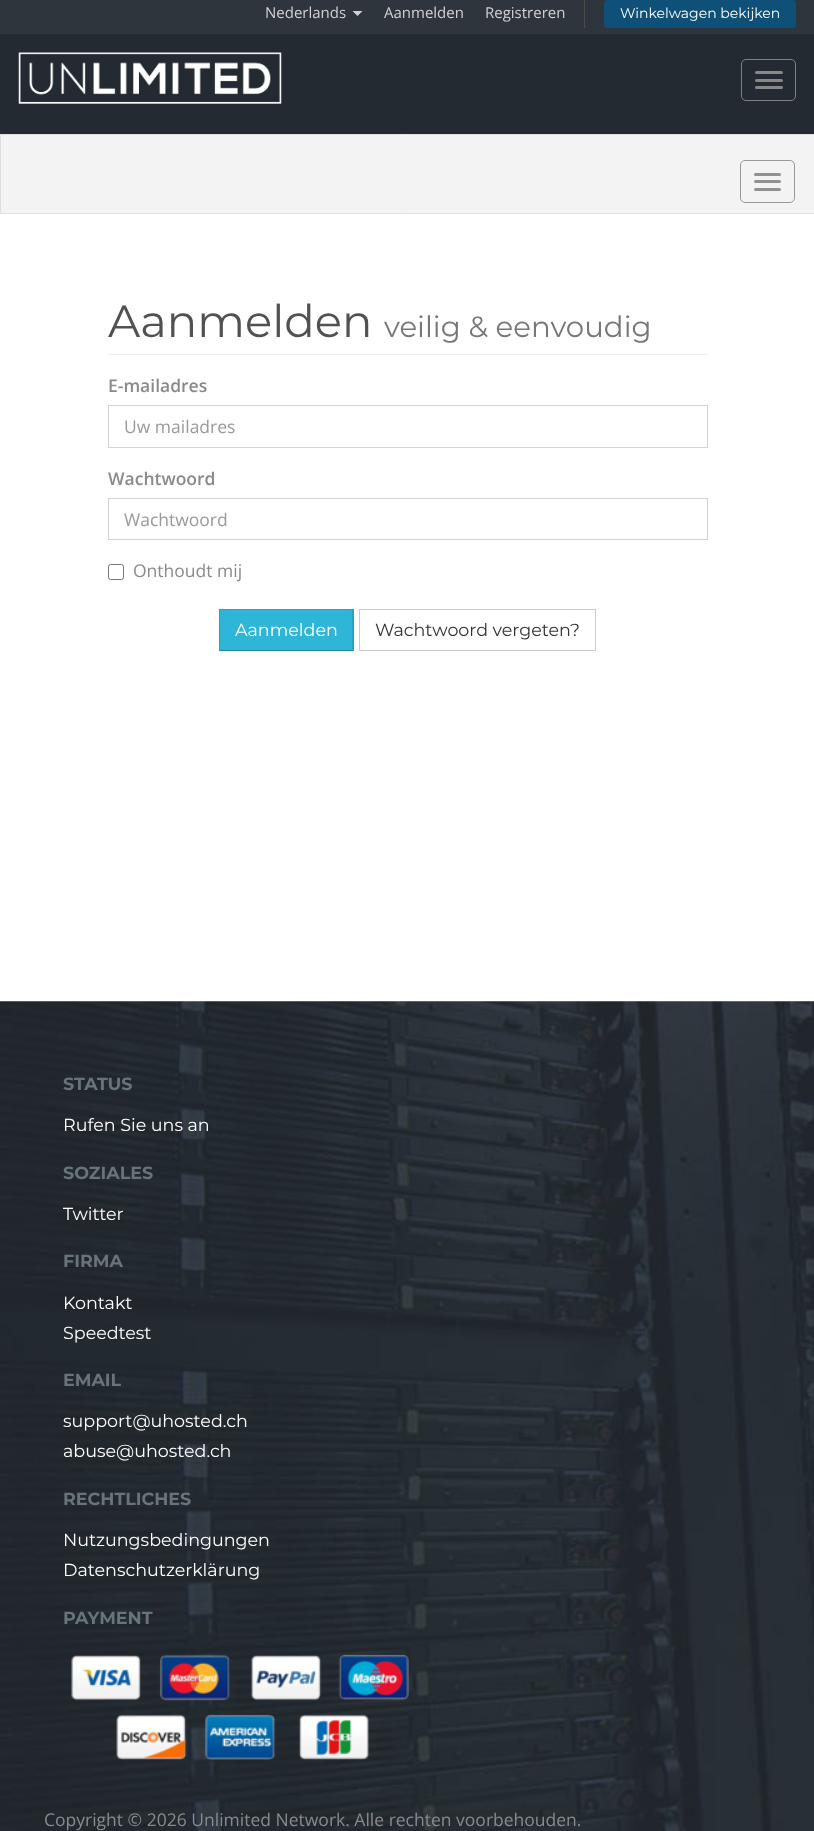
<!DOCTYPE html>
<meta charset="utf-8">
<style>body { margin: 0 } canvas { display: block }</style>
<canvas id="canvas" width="814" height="1831"></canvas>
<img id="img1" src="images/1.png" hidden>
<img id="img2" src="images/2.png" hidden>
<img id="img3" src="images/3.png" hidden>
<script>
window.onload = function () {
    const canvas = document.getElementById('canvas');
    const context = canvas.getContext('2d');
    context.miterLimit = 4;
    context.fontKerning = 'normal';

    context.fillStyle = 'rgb(255, 255, 255)';
    context.fillRect(0, 0, 814, 1831);
    context.fillStyle = 'rgb(46, 53, 60)';
    context.fillRect(0, 0, 814, 34);
    context.fillStyle = 'rgb(210, 210, 210)';
    context.beginPath();
    context.moveTo(352.5, 11);
    context.lineTo(362.5, 11);
    context.lineTo(357.5, 16);
    context.closePath();
    context.fill();
    context.fillStyle = 'rgb(74, 74, 74)';
    context.fillRect(584, 0, 1, 28);
    context.fillStyle = 'rgb(14, 80, 119)';
    context.beginPath();
    context.roundRect(604, 0, 192, 28, 4);
    context.fill();
    context.fillStyle = 'rgb(35, 42, 49)';
    context.fillRect(0, 34, 814, 100);
    context.drawImage(document.getElementById('img1'), 18, 52, 264, 52);
    context.beginPath();
    context.roundRect(741.5, 59.5, 54, 41, 4.5);
    context.strokeStyle = 'rgb(128, 128, 128)';
    context.stroke();
    context.fillStyle = 'rgb(136, 136, 136)';
    context.beginPath();
    context.roundRect(755, 71, 28, 3, 1.5);
    context.fill();
    context.beginPath();
    context.roundRect(755, 79, 28, 3, 1.5);
    context.fill();
    context.beginPath();
    context.roundRect(755, 86, 28, 3, 1.5);
    context.fill();
    context.fillStyle = 'rgb(243, 243, 243)';
    context.beginPath();
    context.rect(0.5, 134.5, 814, 79);
    context.fill();
    context.strokeStyle = 'rgb(223, 223, 223)';
    context.stroke();
    context.beginPath();
    context.roundRect(740.5, 160.5, 54, 42, 4.5);
    context.strokeStyle = 'rgb(153, 153, 153)';
    context.stroke();
    context.fillStyle = 'rgb(145, 145, 145)';
    context.beginPath();
    context.roundRect(754, 173, 27, 3, 1.5);
    context.fill();
    context.beginPath();
    context.roundRect(754, 180, 27, 3, 1.5);
    context.fill();
    context.beginPath();
    context.roundRect(754, 188, 27, 3, 1.5);
    context.fill();
    context.fillStyle = 'rgb(239, 239, 239)';
    context.fillRect(108, 354, 600, 1);
    context.strokeStyle = 'rgb(211, 211, 211)';
    context.strokeRect(108.5, 405.5, 599, 42);
    context.strokeRect(108.5, 498.5, 599, 41);
    context.beginPath();
    context.roundRect(108.5, 564.5, 15, 15, 2);
    context.strokeStyle = 'rgb(118, 118, 118)';
    context.stroke();
    context.fillStyle = 'rgb(45, 182, 216)';
    context.fillRect(219, 609, 135, 42);
    context.fillStyle = 'rgb(41, 164, 194)';
    context.beginPath();
    context.moveTo(219, 609);
    context.lineTo(354, 609);
    context.lineTo(352, 610);
    context.lineTo(220, 610);
    context.closePath();
    context.fill();
    context.fillStyle = 'rgba(0, 0, 0, 0.1)';
    context.beginPath();
    context.moveTo(354, 609);
    context.lineTo(354, 651);
    context.lineTo(352, 650);
    context.lineTo(352, 610);
    context.closePath();
    context.fill();
    context.fillStyle = 'rgba(0, 0, 0, 0.25)';
    context.beginPath();
    context.moveTo(354, 651);
    context.lineTo(219, 651);
    context.lineTo(220, 650);
    context.lineTo(352, 650);
    context.closePath();
    context.fill();
    context.fillStyle = 'rgba(0, 0, 0, 0.1)';
    context.beginPath();
    context.moveTo(219, 651);
    context.lineTo(219, 609);
    context.lineTo(220, 610);
    context.lineTo(220, 650);
    context.closePath();
    context.fill();
    context.strokeStyle = 'rgb(204, 204, 204)';
    context.strokeRect(359.5, 609.5, 236, 41);
    context.drawImage(document.getElementById('img2'), 0, 1001, 814, 830);
    context.drawImage(document.getElementById('img3'), 71, 1654, 338, 106);
    context.font = '15px Open Sans';
    context.fillStyle = 'rgb(210, 210, 210)';
    context.fillText('Nederlands', 265, 18);
    context.fillText('Aanmelden', 384, 18);
    context.fillText('Registreren', 485, 18);
    context.font = '14px Montserrat';
    context.fillStyle = 'rgb(255, 255, 255)';
    context.fillText('Winkelwagen bekijken', 620, 18);
    context.font = '45px Montserrat';
    context.fillStyle = 'rgb(81, 81, 81)';
    context.fillText('Aanmelden', 108, 337);
    context.font = '29.25px Montserrat';
    context.fillStyle = 'rgb(119, 119, 119)';
    context.fillText('veilig & eenvoudig', 384, 337);
    context.font = '600 17.5px Open Sans';
    context.fillStyle = 'rgb(136, 138, 142)';
    context.fillText('E-mailadres', 108, 392);
    context.font = '17.5px Open Sans';
    context.fillStyle = 'rgb(153, 153, 153)';
    context.fillText('Uw mailadres', 124, 433);
    context.font = '600 17.5px Open Sans';
    context.fillStyle = 'rgb(136, 138, 142)';
    context.fillText('Wachtwoord', 108, 485);
    context.font = '17.5px Open Sans';
    context.fillStyle = 'rgb(153, 153, 153)';
    context.fillText('Wachtwoord', 124, 526);
    context.fillStyle = 'rgb(136, 138, 142)';
    context.fillText('Onthoudt mij', 133, 577);
    context.font = '17.5px Montserrat';
    context.fillStyle = 'rgb(255, 255, 255)';
    context.fillText('Aanmelden', 235, 636);
    context.fillStyle = 'rgb(51, 51, 51)';
    context.fillText('Wachtwoord vergeten?', 375, 636);
    context.font = 'bold 17.5px Montserrat';
    context.fillStyle = 'rgb(104, 115, 123)';
    context.fillText('STATUS', 63, 1090);
    context.font = '17.5px Montserrat';
    context.fillStyle = 'rgb(255, 255, 255)';
    context.fillText('Rufen Sie uns an', 63, 1131);
    context.font = 'bold 17.5px Montserrat';
    context.fillStyle = 'rgb(104, 115, 123)';
    context.fillText('SOZIALES', 63, 1179);
    context.font = '17.5px Montserrat';
    context.fillStyle = 'rgb(255, 255, 255)';
    context.fillText('Twitter', 63, 1220);
    context.font = 'bold 17.5px Montserrat';
    context.fillStyle = 'rgb(104, 115, 123)';
    context.fillText('FIRMA', 63, 1267);
    context.font = '17.5px Montserrat';
    context.fillStyle = 'rgb(255, 255, 255)';
    context.fillText('Kontakt', 63, 1309);
    context.fillText('Speedtest', 63, 1339);
    context.font = 'bold 17.5px Montserrat';
    context.fillStyle = 'rgb(104, 115, 123)';
    context.fillText('EMAIL', 63, 1386);
    context.font = '17.5px Montserrat';
    context.fillStyle = 'rgb(255, 255, 255)';
    context.fillText('support@uhosted.ch', 63, 1427);
    context.fillText('abuse@uhosted.ch', 63, 1457);
    context.font = 'bold 17.5px Montserrat';
    context.fillStyle = 'rgb(104, 115, 123)';
    context.fillText('RECHTLICHES', 63, 1505);
    context.font = '17.5px Montserrat';
    context.fillStyle = 'rgb(255, 255, 255)';
    context.fillText('Nutzungsbedingungen', 63, 1546);
    context.fillText('Datenschutzerklärung', 63, 1576);
    context.font = 'bold 17.5px Montserrat';
    context.fillStyle = 'rgb(104, 115, 123)';
    context.fillText('PAYMENT', 63, 1624);
    context.font = '17.5px Open Sans';
    context.fillStyle = 'rgb(136, 138, 142)';
    context.fillText('Copyright © 2026 Unlimited Network. Alle rechten voorbehouden.', 44, 1826);
};
</script>
